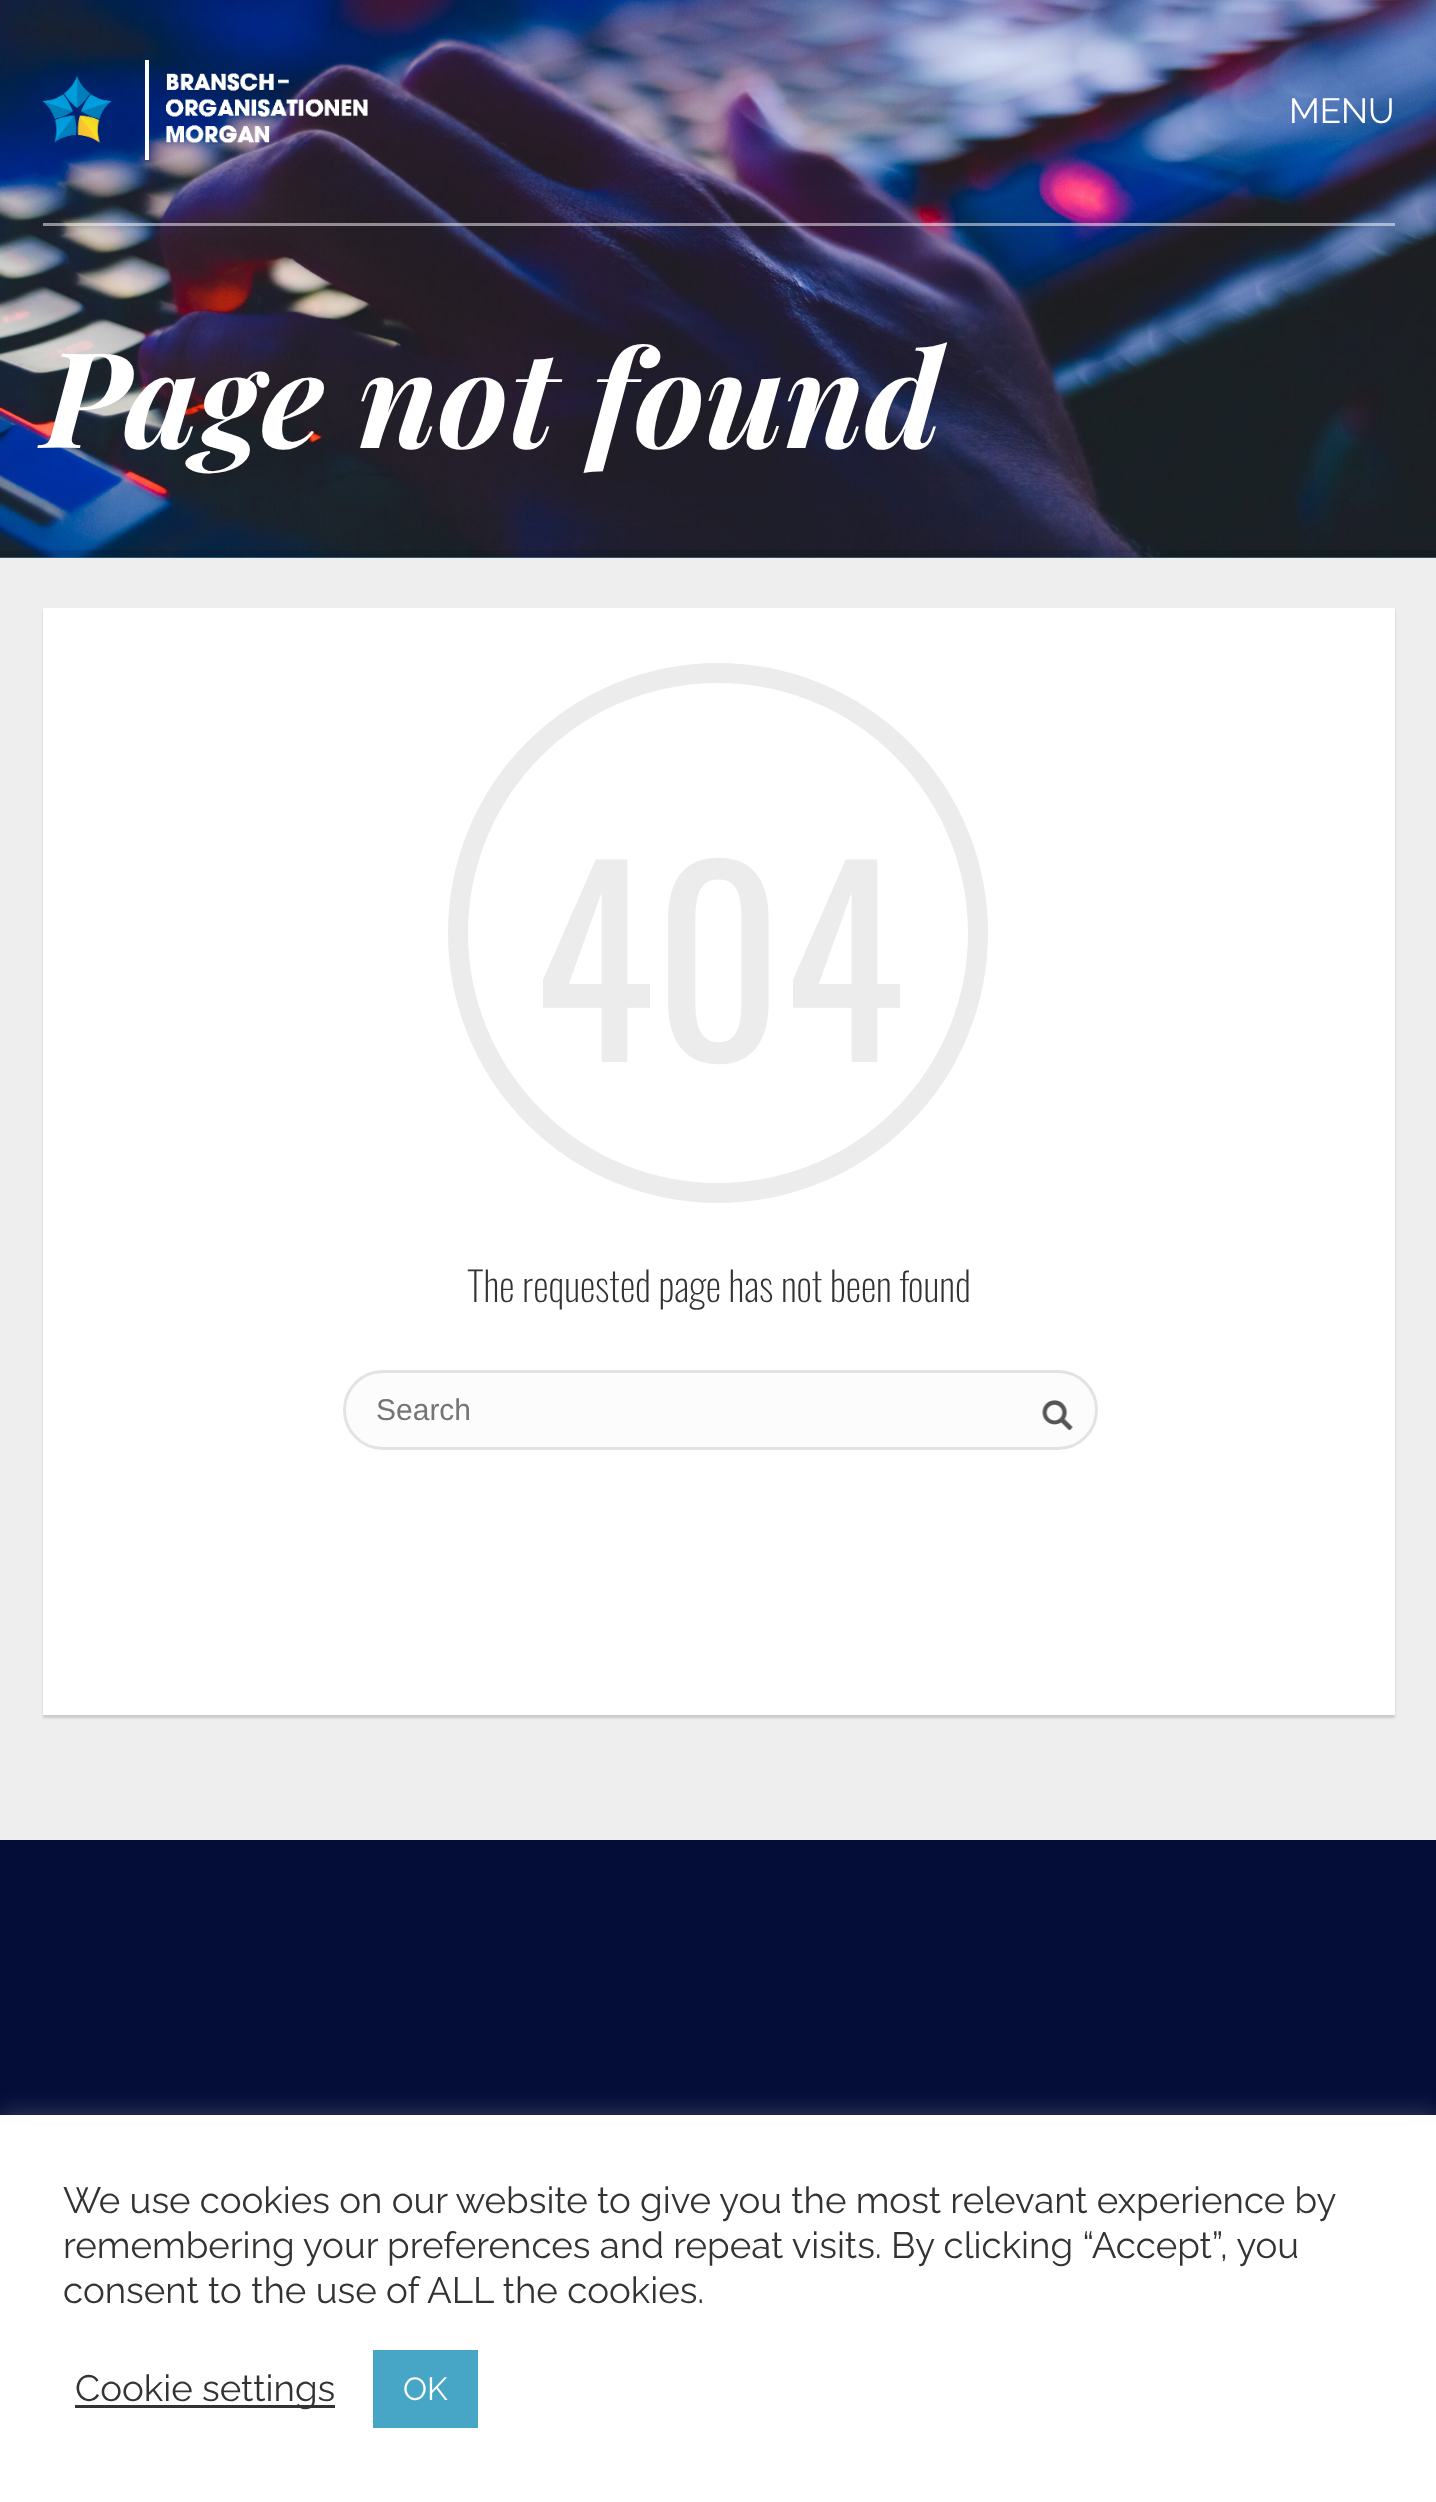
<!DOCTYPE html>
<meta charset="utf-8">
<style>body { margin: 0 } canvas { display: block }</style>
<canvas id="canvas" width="1436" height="2502"></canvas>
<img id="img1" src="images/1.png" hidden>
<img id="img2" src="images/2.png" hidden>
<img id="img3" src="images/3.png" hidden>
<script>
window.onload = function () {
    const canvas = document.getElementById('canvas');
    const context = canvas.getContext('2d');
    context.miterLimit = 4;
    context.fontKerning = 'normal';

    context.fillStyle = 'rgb(238, 238, 238)';
    context.fillRect(0, 0, 1436, 2502);
    context.fillStyle = 'rgb(71, 165, 197)';
    context.fillRect(0, 557, 1436, 1);
    context.drawImage(document.getElementById('img1'), 0, 0, 1436, 558);
    context.fillStyle = 'rgba(255, 255, 255, 0.5)';
    context.fillRect(43, 223, 1352, 3);
    context.drawImage(document.getElementById('img2'), 42, 60, 326, 100);
    context.fillStyle = 'rgba(0, 0, 0, 0.1)';
    context.fillRect(0, 550, 1436, 8);
    context.fillStyle = 'rgba(0, 0, 0, 0.15)';
    context.filter = 'blur(1px)';
    context.beginPath();
    context.rect(43, 610, 1352, 1108);
    context.fill();
    context.filter = 'none';
    context.fillStyle = 'rgb(255, 255, 255)';
    context.fillRect(43, 608, 1352, 1107);
    context.beginPath();
    context.arc(718, 933, 260, 0, 2 * Math.PI);
    context.strokeStyle = 'rgb(236, 236, 236)';
    context.lineWidth = 20;
    context.stroke();
    context.fillStyle = 'rgb(252, 252, 252)';
    context.beginPath();
    context.roundRect(344.5, 1371.5, 752, 77, 38.5);
    context.fill();
    context.strokeStyle = 'rgb(227, 227, 227)';
    context.lineWidth = 3;
    context.stroke();
    context.drawImage(document.getElementById('img3'), 1042, 1400, 31, 30);
    context.fillStyle = 'rgb(4, 13, 56)';
    context.fillRect(0, 1840, 1436, 275);
    context.fillStyle = 'rgba(172, 171, 171, 0.3)';
    context.filter = 'blur(12.5px)';
    context.beginPath();
    context.rect(0, 2113, 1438, 387);
    context.fill();
    context.filter = 'none';
    context.fillStyle = 'rgb(255, 255, 255)';
    context.fillRect(0, 2115, 1436, 387);
    context.fillStyle = 'rgb(51, 51, 51)';
    context.fillRect(75, 2405, 260, 3);
    context.fillStyle = 'rgb(71, 165, 197)';
    context.fillRect(373, 2350, 105, 78);
    context.font = '100 35px Raleway';
    context.fillStyle = 'rgb(255, 255, 255)';
    context.fillText('MENU', 1289, 123);
    context.font = 'italic bold 133px Playfair Display';
    context.fillText('Page not found', 43, 448);
    context.font = '250px Oswald';
    context.fillStyle = 'rgb(236, 236, 236)';
    context.fillText('404', 533, 1062);
    context.font = '200 40px Oswald';
    context.fillStyle = 'rgb(51, 51, 50)';
    context.fillText('The requested page has not been found', 467, 1302);
    context.font = '30px Liberation Sans';
    context.fillStyle = 'rgb(117, 117, 117)';
    context.fillText('Search', 376, 1420);
    context.wordSpacing = '-0.1px';
    context.font = '100 36.65px Raleway';
    context.fillStyle = 'rgb(51, 51, 50)';
    context.fillText('We use cookies on our website to give you the most relevant experience by', 63, 2213);
    context.wordSpacing = '0px';
    context.fillText('remembering your preferences and repeat visits. By clicking “Accept”, you', 63, 2258);
    context.fillText('consent to the use of ALL the cookies.', 63, 2303);
    context.fillText('Cookie settings', 75, 2401);
    context.font = '100 32px Raleway';
    context.fillStyle = 'rgb(255, 255, 255)';
    context.fillText('OK', 403, 2400);
};
</script>
